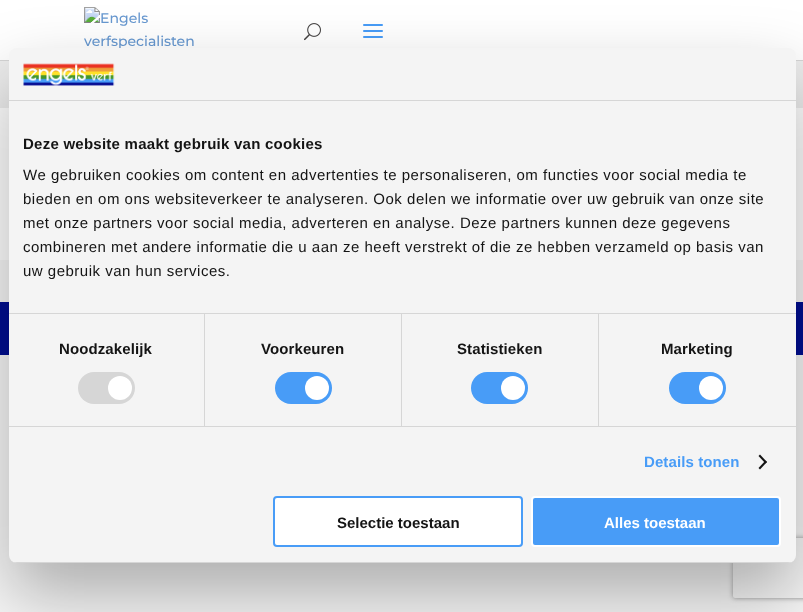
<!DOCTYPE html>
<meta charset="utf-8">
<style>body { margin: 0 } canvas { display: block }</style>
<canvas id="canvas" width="803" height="612"></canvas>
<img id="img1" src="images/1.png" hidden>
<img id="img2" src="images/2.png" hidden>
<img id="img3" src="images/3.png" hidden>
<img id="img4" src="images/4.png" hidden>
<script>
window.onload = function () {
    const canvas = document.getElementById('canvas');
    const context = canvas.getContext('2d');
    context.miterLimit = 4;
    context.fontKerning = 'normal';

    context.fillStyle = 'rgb(247, 247, 247)';
    context.fillRect(0, 0, 803, 612);
    context.fillStyle = 'rgb(214, 214, 214)';
    context.fillRect(0, 60, 803, 1);
    context.fillStyle = 'rgb(255, 255, 255)';
    context.fillRect(0, 0, 803, 60);
    context.drawImage(document.getElementById('img1'), 84, 7, 110, 41);
    context.drawImage(document.getElementById('img2'), 304, 23, 17, 18);
    context.drawImage(document.getElementById('img3'), 363, 24, 20, 14);
    context.fillStyle = 'rgb(238, 238, 238)';
    context.fillRect(0, 61, 803, 47);
    context.fillStyle = 'rgb(255, 255, 255)';
    context.fillRect(0, 108, 803, 152);
    context.fillStyle = 'rgb(1, 14, 145)';
    context.fillRect(0, 302, 803, 53);
    context.fillStyle = 'rgba(0, 0, 0, 0.3)';
    context.filter = 'blur(34px)';
    context.beginPath();
    context.roundRect(9, 80, 787, 515, 8);
    context.fill();
    context.filter = 'none';
    context.save();
    context.beginPath();
    context.moveTo(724, 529);
    context.lineTo(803, 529);
    context.lineTo(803, 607);
    context.lineTo(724, 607);
    context.closePath();
    context.moveTo(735, 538);
    context.lineTo(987, 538);
    context.bezierCurveTo(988, 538, 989, 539, 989, 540);
    context.lineTo(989, 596);
    context.bezierCurveTo(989, 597, 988, 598, 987, 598);
    context.lineTo(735, 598);
    context.bezierCurveTo(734, 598, 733, 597, 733, 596);
    context.lineTo(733, 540);
    context.bezierCurveTo(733, 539, 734, 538, 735, 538);
    context.closePath();
    context.clip('evenodd');
    context.fillStyle = 'rgb(128, 128, 128)';
    context.filter = 'blur(2.5px)';
    context.beginPath();
    context.roundRect(733, 538, 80, 60, 2);
    context.fill();
    context.filter = 'none';
    context.restore();
    context.fillStyle = 'rgb(244, 244, 244)';
    context.beginPath();
    context.roundRect(9, 48, 787, 515, 8);
    context.fill();
    context.fillStyle = 'rgb(214, 214, 214)';
    context.fillRect(9, 100, 787, 1);
    context.drawImage(document.getElementById('img4'), 23, 63, 92, 23);
    context.fillRect(9, 313, 787, 1);
    context.fillRect(9, 426, 787, 1);
    context.fillRect(204, 314, 1, 112);
    context.beginPath();
    context.roundRect(78, 372, 57, 32, 16);
    context.fill();
    context.fillStyle = 'rgb(255, 255, 255)';
    context.beginPath();
    context.arc(120, 388, 12, 0, 2 * Math.PI);
    context.fill();
    context.fillStyle = 'rgb(214, 214, 214)';
    context.fillRect(401, 314, 1, 112);
    context.fillStyle = 'rgb(72, 156, 247)';
    context.beginPath();
    context.roundRect(275, 372, 57, 32, 16);
    context.fill();
    context.fillStyle = 'rgb(255, 255, 255)';
    context.beginPath();
    context.arc(317, 388, 12, 0, 2 * Math.PI);
    context.fill();
    context.fillStyle = 'rgb(214, 214, 214)';
    context.fillRect(598, 314, 1, 112);
    context.fillStyle = 'rgb(72, 156, 247)';
    context.beginPath();
    context.roundRect(471, 372, 57, 32, 16);
    context.fill();
    context.fillStyle = 'rgb(255, 255, 255)';
    context.beginPath();
    context.arc(513, 388, 12, 0, 2 * Math.PI);
    context.fill();
    context.fillStyle = 'rgb(72, 156, 247)';
    context.beginPath();
    context.roundRect(669, 372, 57, 32, 16);
    context.fill();
    context.fillStyle = 'rgb(255, 255, 255)';
    context.beginPath();
    context.arc(711, 388, 12, 0, 2 * Math.PI);
    context.fill();
    context.fillStyle = 'rgb(20, 20, 20)';
    context.beginPath();
    context.moveTo(760, 454.5);
    context.lineTo(767, 462);
    context.lineTo(765.5, 463.5);
    context.lineTo(758.5, 456);
    context.closePath();
    context.fill();
    context.beginPath();
    context.moveTo(765.5, 460.5);
    context.lineTo(767, 462);
    context.lineTo(760, 469.5);
    context.lineTo(758.5, 468);
    context.closePath();
    context.fill();
    context.save();
    context.beginPath();
    context.roundRect(9, 48, 787, 515, 8);
    context.clip();
    context.fillStyle = 'rgb(214, 214, 214)';
    context.fillRect(9, 562, 787, 1);
    context.restore();
    context.fillStyle = 'rgb(255, 255, 255)';
    context.beginPath();
    context.roundRect(274, 497, 248, 49, 3);
    context.fill();
    context.strokeStyle = 'rgb(72, 156, 247)';
    context.lineWidth = 2;
    context.stroke();
    context.fillStyle = 'rgb(72, 156, 247)';
    context.beginPath();
    context.roundRect(532, 497, 248, 49, 3);
    context.fill();
    context.strokeStyle = 'rgb(255, 255, 255)';
    context.stroke();
    context.letterSpacing = '0.25px';
    context.font = 'bold 15px Liberation Sans';
    context.fillStyle = 'rgb(20, 20, 20)';
    context.fillText('Deze website maakt gebruik van cookies', 23, 149);
    context.letterSpacing = '0.5px';
    context.font = '15px Liberation Sans';
    context.fillText('We gebruiken cookies om content en advertenties te personaliseren, om functies voor social media te', 23, 180);
    context.fillText('bieden en om ons websiteverkeer te analyseren. Ook delen we informatie over uw gebruik van onze site', 23, 204);
    context.fillText('met onze partners voor social media, adverteren en analyse. Deze partners kunnen deze gegevens', 23, 228);
    context.fillText('combineren met andere informatie die u aan ze heeft verstrekt of die ze hebben verzameld op basis van', 23, 252);
    context.fillText('uw gebruik van hun services.', 23, 276);
    context.letterSpacing = '0.1px';
    context.font = 'bold 15px Liberation Sans';
    context.fillText('Noodzakelijk', 59, 354);
    context.fillText('Voorkeuren', 261, 354);
    context.fillText('Statistieken', 457, 354);
    context.fillText('Marketing', 661, 354);
    context.fillStyle = 'rgb(72, 156, 247)';
    context.fillText('Details tonen', 644, 467);
    context.letterSpacing = '0px';
    context.fillStyle = 'rgb(20, 20, 20)';
    context.fillText('Selectie toestaan', 337, 528);
    context.fillStyle = 'rgb(255, 255, 255)';
    context.fillText('Alles toestaan', 604, 528);
};
</script>
